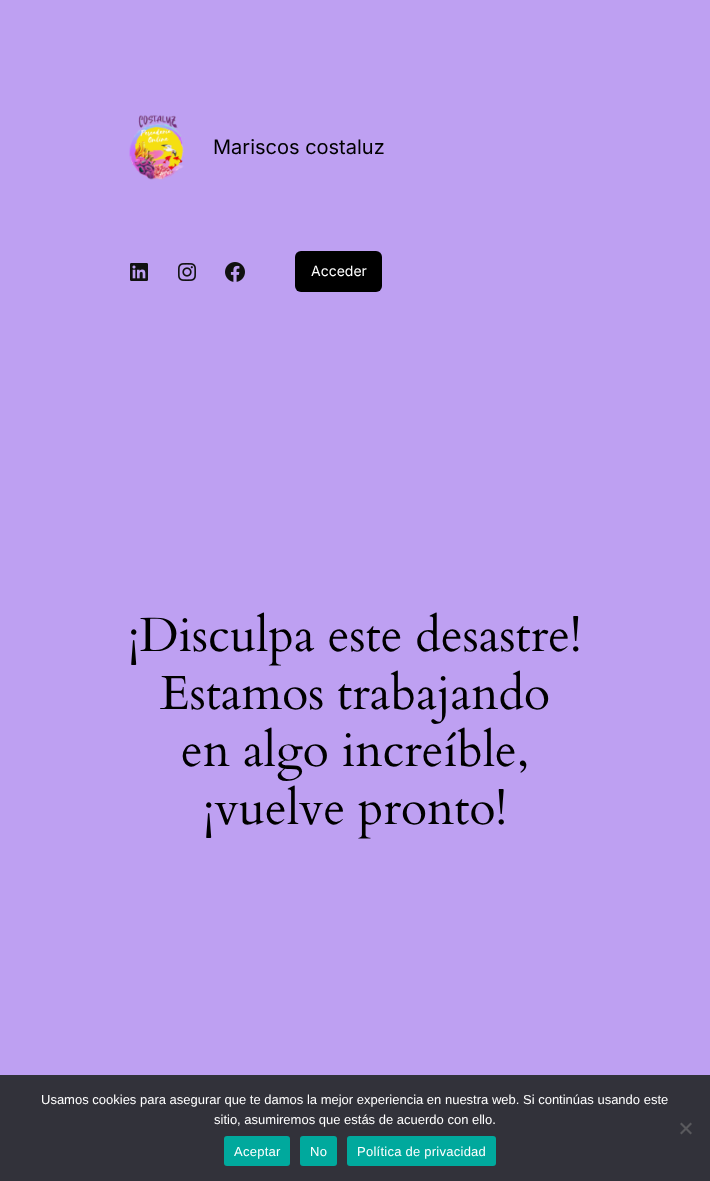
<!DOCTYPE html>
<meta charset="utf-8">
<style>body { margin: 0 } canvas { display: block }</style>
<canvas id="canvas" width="710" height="1181"></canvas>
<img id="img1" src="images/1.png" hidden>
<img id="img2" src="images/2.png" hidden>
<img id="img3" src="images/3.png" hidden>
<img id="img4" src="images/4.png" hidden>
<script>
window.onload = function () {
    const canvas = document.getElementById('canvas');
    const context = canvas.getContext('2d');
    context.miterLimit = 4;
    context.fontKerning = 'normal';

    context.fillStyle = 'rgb(190, 160, 242)';
    context.fillRect(0, 0, 710, 1181);
    context.drawImage(document.getElementById('img1'), 129, 115, 56, 65);
    context.drawImage(document.getElementById('img2'), 130, 263, 18, 18);
    context.drawImage(document.getElementById('img3'), 178, 263, 18, 18);
    context.drawImage(document.getElementById('img4'), 225, 262, 20, 20);
    context.fillStyle = 'rgb(0, 0, 0)';
    context.beginPath();
    context.roundRect(295, 251, 87, 41, 6);
    context.fill();
    context.fillStyle = 'rgb(50, 50, 58)';
    context.fillRect(0, 1075, 710, 106);
    context.fillStyle = 'rgb(89, 89, 93)';
    context.beginPath();
    context.moveTo(690.5, 1122.5);
    context.lineTo(692, 1124);
    context.lineTo(681.5, 1134.5);
    context.lineTo(680, 1133);
    context.closePath();
    context.fill();
    context.beginPath();
    context.moveTo(680, 1124);
    context.lineTo(681.5, 1122.5);
    context.lineTo(692, 1133);
    context.lineTo(690.5, 1134.5);
    context.closePath();
    context.fill();
    context.fillStyle = 'rgb(0, 169, 157)';
    context.beginPath();
    context.roundRect(224, 1136, 66, 30, 3);
    context.fill();
    context.beginPath();
    context.roundRect(300, 1136, 37, 30, 3);
    context.fill();
    context.beginPath();
    context.roundRect(347, 1136, 149, 30, 3);
    context.fill();
    context.font = '20px Inter';
    context.fillStyle = 'rgb(0, 0, 0)';
    context.fillText('Mariscos costaluz', 213, 154);
    context.font = '14px Inter';
    context.fillStyle = 'rgb(255, 255, 255)';
    context.fillText('Acceder', 311, 276);
    context.font = '48px Cardo';
    context.fillStyle = 'rgb(0, 0, 0)';
    context.fillText('¡Disculpa este desastre!', 128, 651);
    context.fillText('Estamos trabajando', 160, 709);
    context.fillText('en algo increíble,', 181, 766);
    context.fillText('¡vuelve pronto!', 203, 824);
    context.font = '13px Liberation Sans';
    context.fillStyle = 'rgb(255, 255, 255)';
    context.fillText('Usamos cookies para asegurar que te damos la mejor experiencia en nuestra web. Si continúas usando este', 41, 1104);
    context.fillText('sitio, asumiremos que estás de acuerdo con ello.', 214, 1124);
    context.letterSpacing = '0.25px';
    context.fillText('Aceptar', 234, 1156);
    context.fillText('No', 310, 1156);
    context.fillText('Política de privacidad', 357, 1156);
};
</script>
